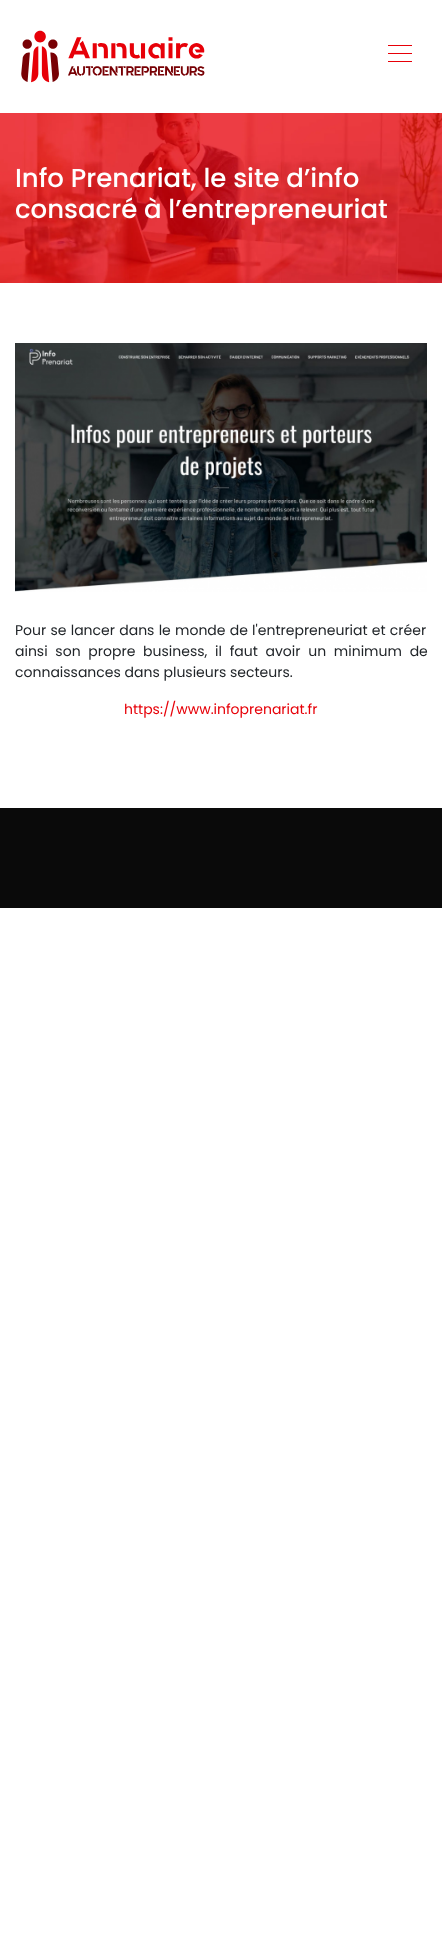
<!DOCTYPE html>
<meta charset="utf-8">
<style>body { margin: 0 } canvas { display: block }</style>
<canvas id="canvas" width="442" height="1939"></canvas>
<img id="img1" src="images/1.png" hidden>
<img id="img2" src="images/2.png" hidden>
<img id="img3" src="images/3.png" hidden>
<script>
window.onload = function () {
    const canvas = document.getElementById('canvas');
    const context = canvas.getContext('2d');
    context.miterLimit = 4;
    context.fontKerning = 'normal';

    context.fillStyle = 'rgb(255, 255, 255)';
    context.fillRect(0, 0, 442, 1939);
    context.drawImage(document.getElementById('img1'), 21, 30, 184, 53);
    context.fillStyle = 'rgb(231, 0, 8)';
    context.fillRect(388, 45, 24, 1);
    context.fillRect(388, 53, 24, 1);
    context.fillRect(388, 61, 24, 1);
    context.drawImage(document.getElementById('img2'), 0, 113, 442, 170);
    context.drawImage(document.getElementById('img3'), 15, 343, 412, 249);
    context.fillStyle = 'rgb(10, 10, 10)';
    context.fillRect(0, 808, 442, 100);
    context.font = '500 26px Poppins';
    context.fillStyle = 'rgb(255, 255, 255)';
    context.fillText('Info Prenariat, le site d’info', 15, 187);
    context.fillText('consacré à l’entrepreneuriat', 15, 218);
    context.wordSpacing = '0.5px';
    context.font = '14px Poppins';
    context.fillStyle = 'rgb(33, 37, 41)';
    context.fillText('Pour se lancer dans le monde de l\'entrepreneuriat et créer', 15, 635);
    context.wordSpacing = '4px';
    context.fillText('ainsi son propre business, il faut avoir un minimum de', 15, 656);
    context.wordSpacing = '0px';
    context.fillText('connaissances dans plusieurs secteurs.', 15, 677);
    context.fillStyle = 'rgb(231, 0, 8)';
    context.fillText('https://www.infoprenariat.fr', 124, 714);
};
</script>
